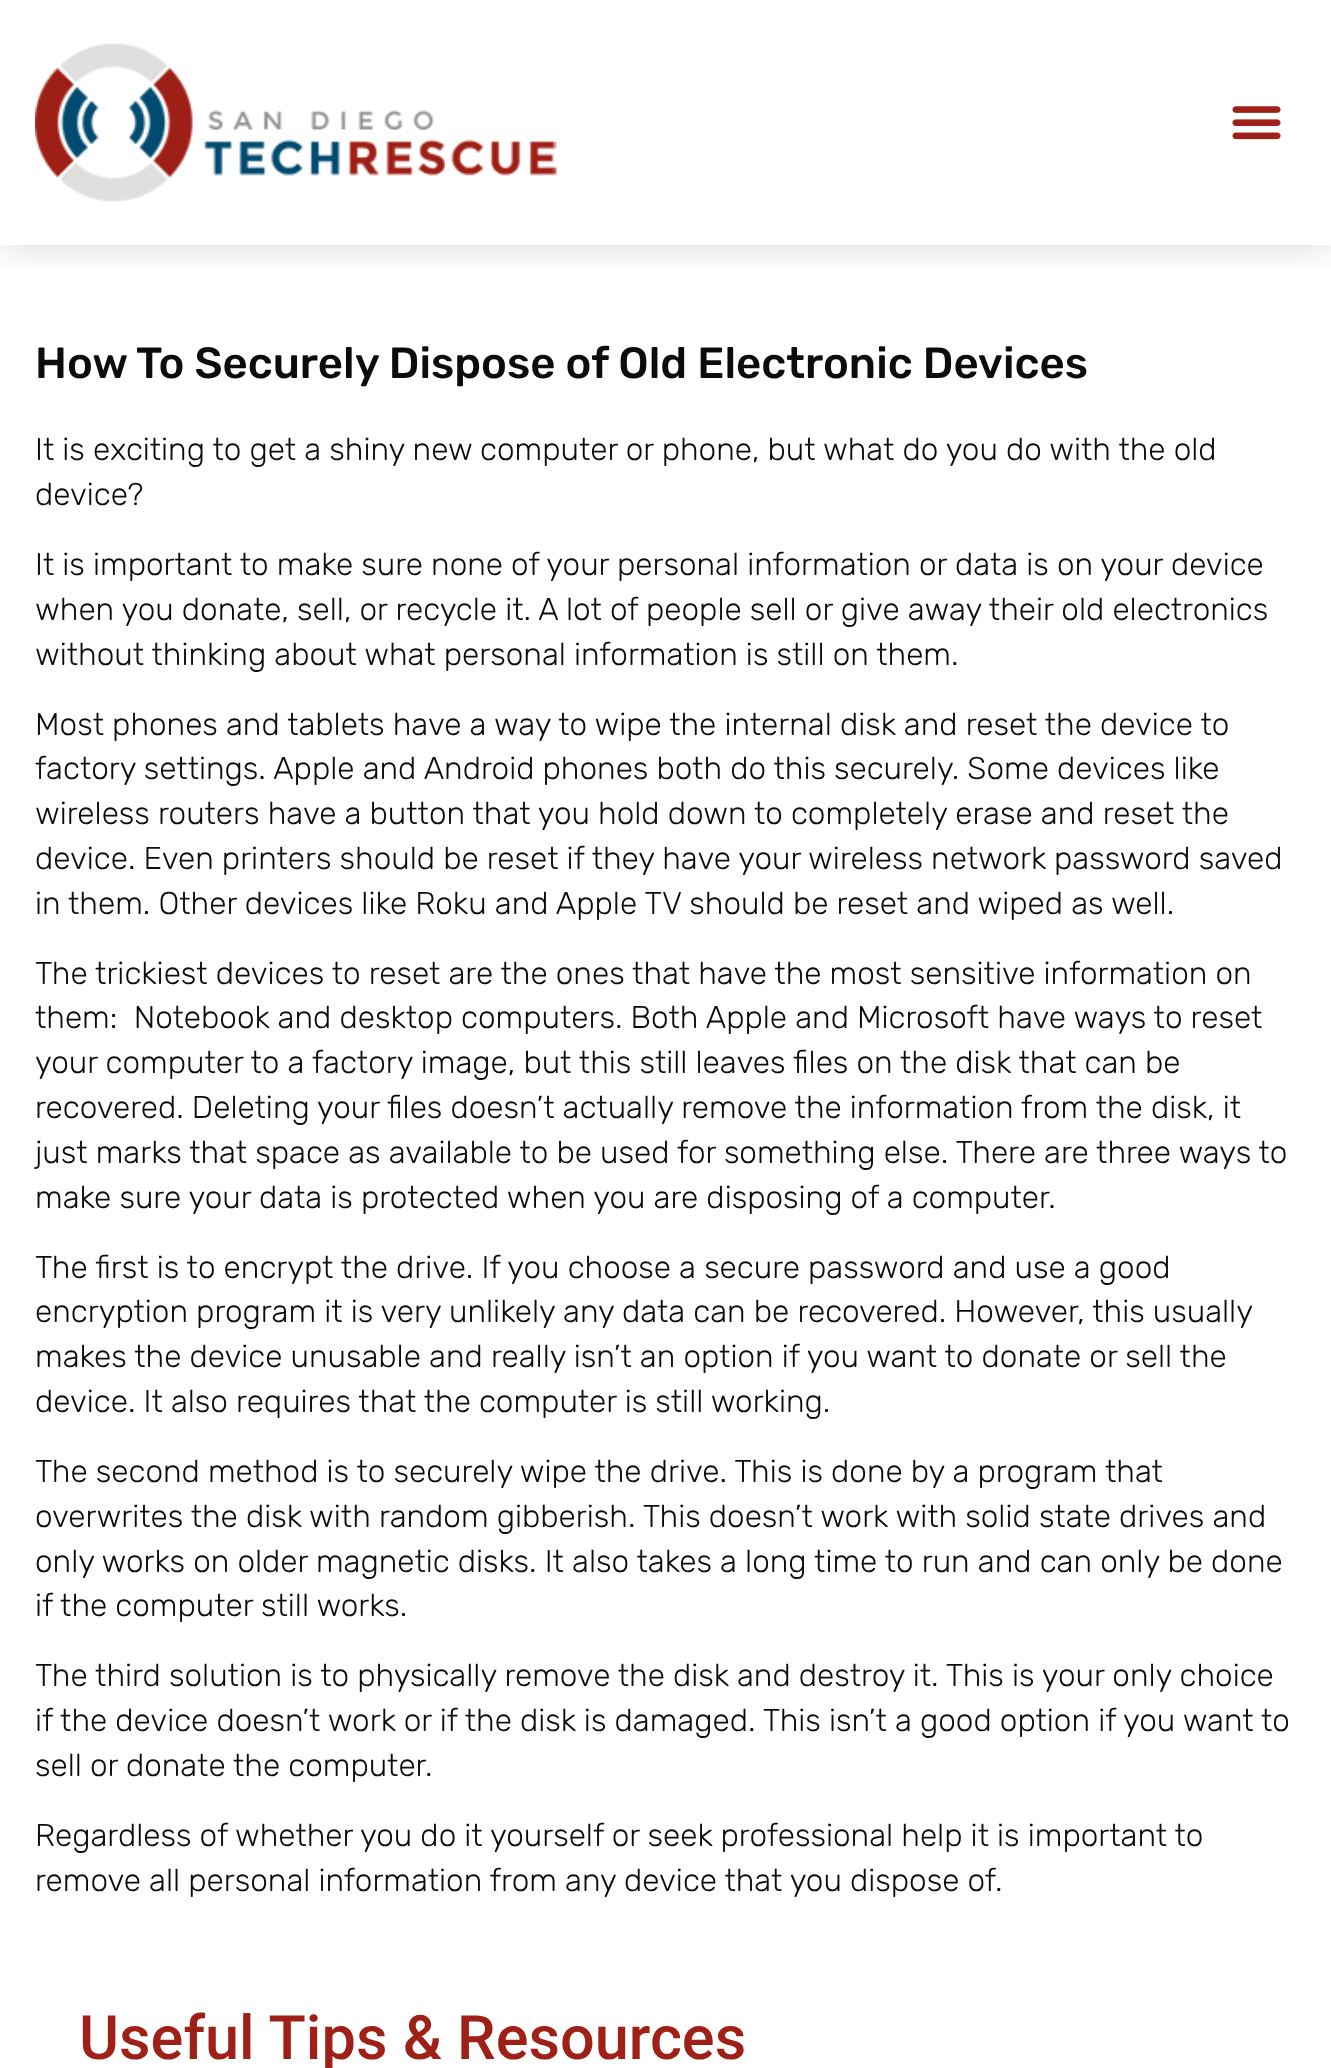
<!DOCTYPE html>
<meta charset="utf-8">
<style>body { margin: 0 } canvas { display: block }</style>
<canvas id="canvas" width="1331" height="2068"></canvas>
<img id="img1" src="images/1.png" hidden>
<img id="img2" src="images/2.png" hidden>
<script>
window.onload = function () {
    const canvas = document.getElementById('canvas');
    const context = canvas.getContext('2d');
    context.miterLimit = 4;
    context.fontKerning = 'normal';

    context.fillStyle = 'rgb(255, 255, 255)';
    context.fillRect(0, 0, 1331, 2068);
    context.save();
    context.beginPath();
    context.rect(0, 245, 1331, 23);
    context.clip();
    context.fillStyle = 'rgba(0, 0, 0, 0.15)';
    context.filter = 'blur(21px)';
    context.beginPath();
    context.rect(0, 0, 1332, 245);
    context.fill();
    context.filter = 'none';
    context.restore();
    context.drawImage(document.getElementById('img1'), 35, 43, 522, 159);
    context.drawImage(document.getElementById('img2'), 1232, 106, 49, 34);
    context.font = '500 43.75px Rubik';
    context.fillStyle = 'rgb(12, 12, 12)';
    context.fillText('How To Securely Dispose of Old Electronic Devices', 35, 378);
    context.font = '300 31.5px Rubik';
    context.fillText('It is exciting to get a shiny new computer or phone, but what do you do with the old', 35, 460);
    context.fillText('device?', 35, 505);
    context.fillText('It is important to make sure none of your personal information or data is on your device', 35, 575);
    context.fillText('when you donate, sell, or recycle it. A lot of people sell or give away their old electronics', 35, 620);
    context.fillText('without thinking about what personal information is still on them.', 35, 665);
    context.fillText('Most phones and tablets have a way to wipe the internal disk and reset the device to', 35, 735);
    context.fillText('factory settings. Apple and Android phones both do this securely. Some devices like', 35, 779);
    context.fillText('wireless routers have a button that you hold down to completely erase and reset the', 35, 824);
    context.fillText('device. Even printers should be reset if they have your wireless network password saved', 35, 869);
    context.fillText('in them. Other devices like Roku and Apple TV should be reset and wiped as well.', 35, 914);
    context.fillText('The trickiest devices to reset are the ones that have the most sensitive information on', 35, 984);
    context.fillText('them:  Notebook and desktop computers. Both Apple and Microsoft have ways to reset', 35, 1028);
    context.fillText('your computer to a factory image, but this still leaves files on the disk that can be', 35, 1073);
    context.fillText('recovered. Deleting your files doesn’t actually remove the information from the disk, it', 35, 1118);
    context.fillText('just marks that space as available to be used for something else. There are three ways to', 35, 1163);
    context.fillText('make sure your data is protected when you are disposing of a computer.', 35, 1208);
    context.fillText('The first is to encrypt the drive. If you choose a secure password and use a good', 35, 1278);
    context.fillText('encryption program it is very unlikely any data can be recovered. However, this usually', 35, 1322);
    context.fillText('makes the device unusable and really isn’t an option if you want to donate or sell the', 35, 1367);
    context.fillText('device. It also requires that the computer is still working.', 35, 1412);
    context.fillText('The second method is to securely wipe the drive. This is done by a program that', 35, 1482);
    context.fillText('overwrites the disk with random gibberish. This doesn’t work with solid state drives and', 35, 1527);
    context.fillText('only works on older magnetic disks. It also takes a long time to run and can only be done', 35, 1572);
    context.fillText('if the computer still works.', 35, 1616);
    context.fillText('The third solution is to physically remove the disk and destroy it. This is your only choice', 35, 1686);
    context.fillText('if the device doesn’t work or if the disk is damaged. This isn’t a good option if you want to', 35, 1731);
    context.fillText('sell or donate the computer.', 35, 1776);
    context.fillText('Regardless of whether you do it yourself or seek professional help it is important to', 35, 1846);
    context.fillText('remove all personal information from any device that you dispose of.', 35, 1891);
    context.font = '500 61.25px Roboto';
    context.fillStyle = 'rgb(158, 32, 22)';
    context.fillText('Useful Tips & Resources', 79, 2059);
};
</script>
